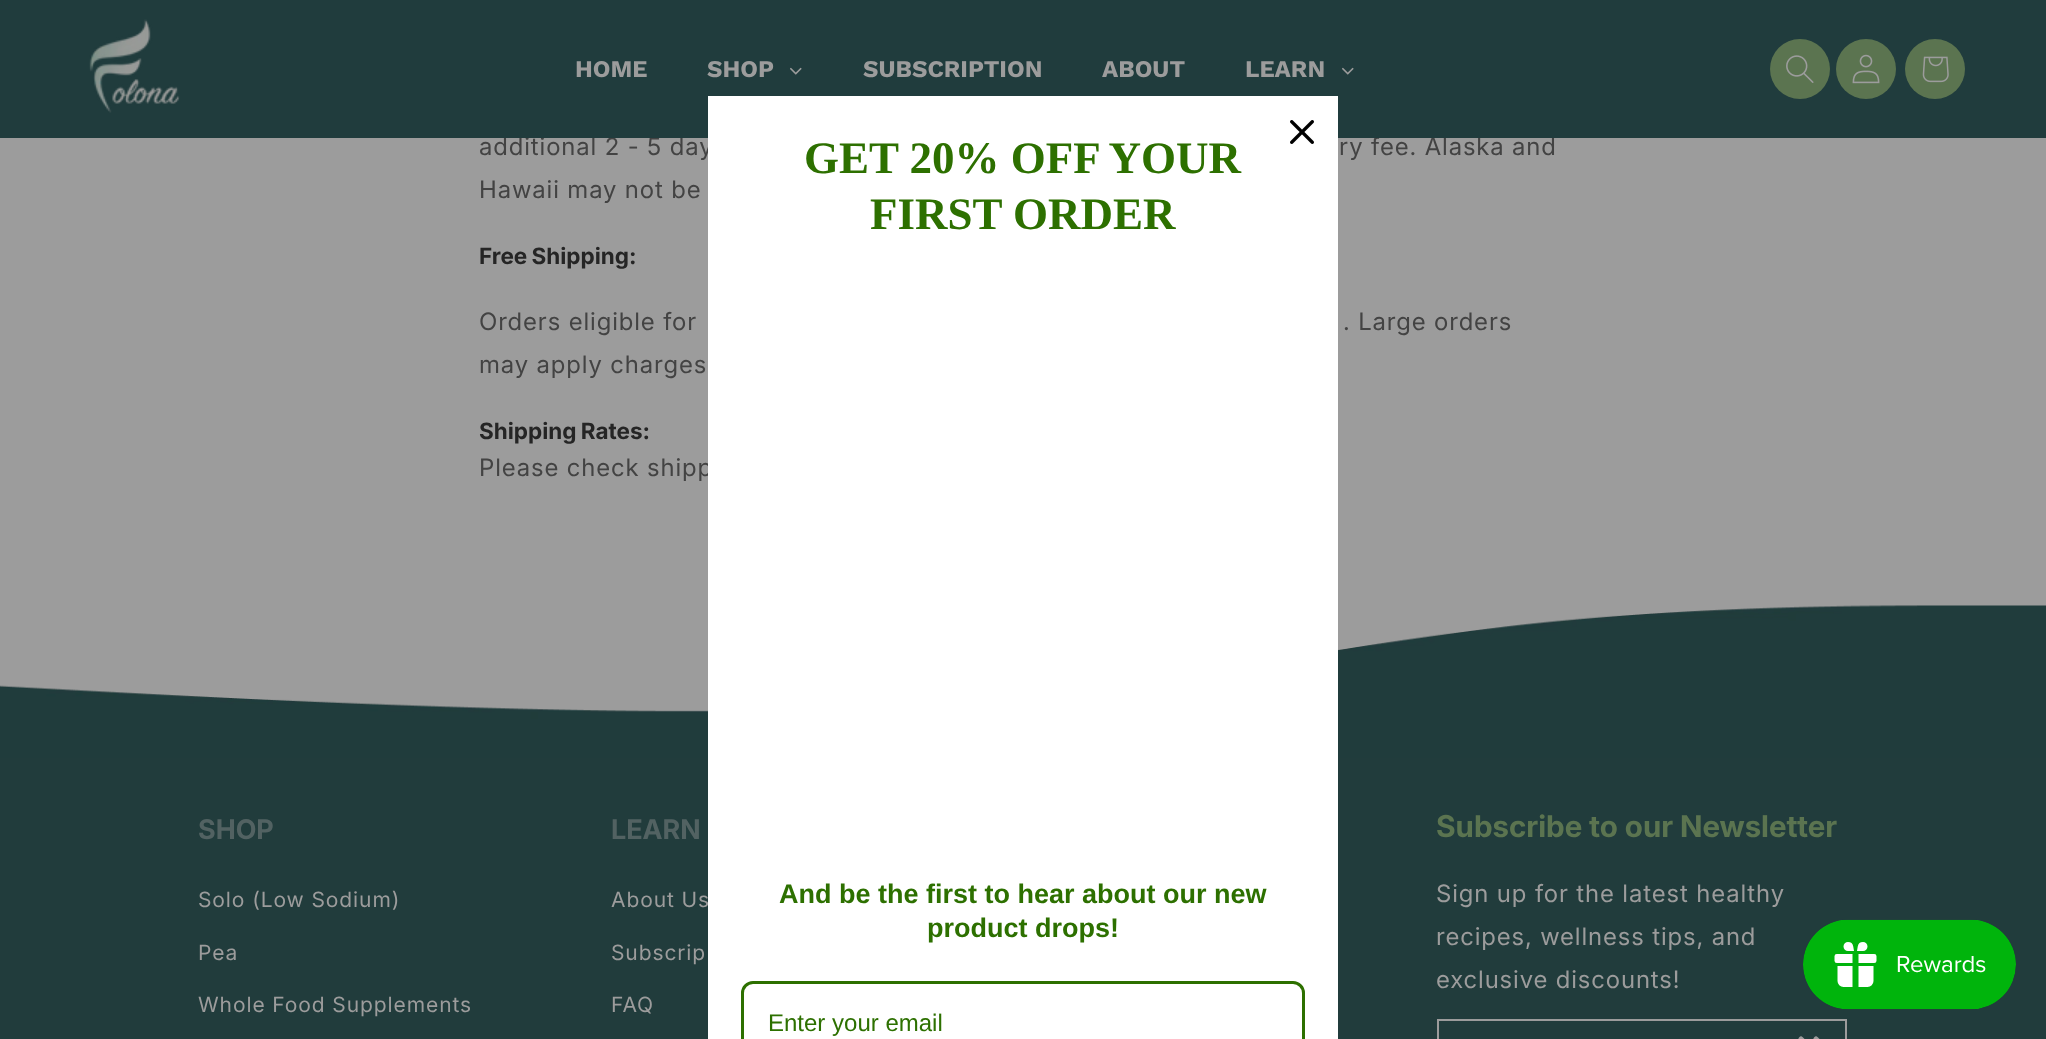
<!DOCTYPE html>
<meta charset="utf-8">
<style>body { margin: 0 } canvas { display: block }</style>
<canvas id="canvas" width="2046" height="1039"></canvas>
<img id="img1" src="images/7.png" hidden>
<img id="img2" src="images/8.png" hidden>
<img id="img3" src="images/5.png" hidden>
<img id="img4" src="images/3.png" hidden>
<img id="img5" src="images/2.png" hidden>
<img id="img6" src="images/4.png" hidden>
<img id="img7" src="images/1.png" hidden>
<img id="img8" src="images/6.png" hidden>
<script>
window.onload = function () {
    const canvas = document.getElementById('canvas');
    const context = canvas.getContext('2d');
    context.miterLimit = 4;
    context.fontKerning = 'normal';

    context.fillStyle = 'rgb(156, 156, 156)';
    context.fillRect(0, 0, 2046, 1039);
    context.drawImage(document.getElementById('img1'), 0, 605, 2046, 153);
    context.fillStyle = 'rgb(33, 60, 60)';
    context.fillRect(0, 758, 2046, 281);
    context.strokeStyle = 'rgb(156, 156, 156)';
    context.lineWidth = 2;
    context.strokeRect(1438, 1020, 408, 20);
    context.beginPath();
    context.moveTo(1801, 1039);
    context.lineTo(1813.5, 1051.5);
    context.lineTo(1801, 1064);
    context.moveTo(1816, 1039);
    context.lineTo(1828.5, 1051.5);
    context.lineTo(1816, 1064);
    context.lineWidth = 5;
    context.lineCap = 'round';
    context.lineJoin = 'round';
    context.stroke();
    context.drawImage(document.getElementById('img2'), 1803, 919, 213, 91);
    context.letterSpacing = '0.9px';
    context.font = '24px Inter';
    context.fillStyle = 'rgb(67, 67, 67)';
    context.fillText('additional 2 - 5 day', 479, 155);
    context.fillText('ry fee. Alaska and', 1339, 155);
    context.fillStyle = 'rgb(32, 60, 61)';
    context.fillRect(0, 0, 2046, 138);
    context.fillStyle = 'rgb(91, 116, 80)';
    context.beginPath();
    context.arc(1935, 69, 30, 0, 2 * Math.PI);
    context.fill();
    context.drawImage(document.getElementById('img3'), 1922, 56, 27, 27);
    context.beginPath();
    context.arc(1800, 69, 30, 0, 2 * Math.PI);
    context.fill();
    context.drawImage(document.getElementById('img4'), 1786, 55, 28, 28);
    context.drawImage(document.getElementById('img5'), 1342, 67, 12, 8);
    context.letterSpacing = '0px';
    context.font = 'bold 24px Work Sans';
    context.fillStyle = 'rgb(156, 156, 156)';
    context.fillText('LEARN', 1245, 77);
    context.fillText('ABOUT', 1102, 77);
    context.fillText('SUBSCRIPTION', 863, 77);
    context.drawImage(document.getElementById('img5'), 790, 67, 12, 8);
    context.fillText('SHOP', 707, 77);
    context.fillText('HOME', 575, 77);
    context.fillStyle = 'rgb(91, 116, 80)';
    context.beginPath();
    context.arc(1866, 69, 30, 0, 2 * Math.PI);
    context.fill();
    context.drawImage(document.getElementById('img6'), 1852, 54, 28, 30);
    context.drawImage(document.getElementById('img7'), 89, 19, 91, 94);
    context.letterSpacing = '0.9px';
    context.font = '24px Inter';
    context.fillStyle = 'rgb(67, 67, 67)';
    context.fillText('Hawaii may not be', 479, 198);
    context.letterSpacing = '0px';
    context.wordSpacing = '-1px';
    context.font = 'bold 22.5px Inter';
    context.fillStyle = 'rgb(37, 37, 37)';
    context.fillText('Free Shipping:', 479, 264);
    context.letterSpacing = '0.9px';
    context.wordSpacing = '0px';
    context.font = '24px Inter';
    context.fillStyle = 'rgb(67, 67, 67)';
    context.fillText('Orders eligible for', 479, 330);
    context.fillText('. Large orders', 1343, 330);
    context.fillText('may apply charges', 479, 373);
    context.letterSpacing = '0px';
    context.wordSpacing = '-1px';
    context.font = 'bold 22.5px Inter';
    context.fillStyle = 'rgb(37, 37, 37)';
    context.fillText('Shipping Rates:', 479, 439);
    context.letterSpacing = '0.9px';
    context.wordSpacing = '0px';
    context.font = '24px Inter';
    context.fillStyle = 'rgb(67, 67, 67)';
    context.fillText('Please check shipp', 479, 476);
    context.fillStyle = 'rgb(255, 255, 255)';
    context.fillRect(708, 96, 630, 943);
    context.drawImage(document.getElementById('img8'), 1290, 120, 24, 24);
    context.letterSpacing = '0px';
    context.font = 'bold 45px Liberation Serif';
    context.fillStyle = 'rgb(45, 112, 0)';
    context.fillText('GET 20% OFF YOUR', 804, 173);
    context.fillText('FIRST ORDER', 870, 229);
    context.font = 'bold 27px Liberation Sans';
    context.fillText('And be the first to hear about our new', 779, 903);
    context.fillText('product drops!', 927, 937);
    context.beginPath();
    context.roundRect(742.5, 982.5, 561, 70, 10.5);
    context.strokeStyle = 'rgb(45, 112, 0)';
    context.lineWidth = 3;
    context.lineJoin = 'miter';
    context.stroke();
    context.font = '24px Liberation Sans';
    context.fillText('Enter your email', 768, 1031);
    context.font = 'bold 27px "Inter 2"';
    context.fillStyle = 'rgb(82, 98, 98)';
    context.fillText('SHOP', 198, 839);
    context.letterSpacing = '0.9px';
    context.font = '21px "Inter 2"';
    context.fillStyle = 'rgb(156, 156, 156)';
    context.fillText('Solo (Low Sodium)', 198, 907);
    context.fillText('Pea', 198, 960);
    context.fillText('Whole Food Supplements', 198, 1012);
    context.letterSpacing = '0px';
    context.font = 'bold 27px "Inter 2"';
    context.fillStyle = 'rgb(82, 98, 98)';
    context.fillText('LEARN', 611, 839);
    context.letterSpacing = '0.9px';
    context.font = '21px "Inter 2"';
    context.fillStyle = 'rgb(156, 156, 156)';
    context.fillText('About Us', 611, 907);
    context.fillText('Subscrip', 611, 960);
    context.fillText('FAQ', 611, 1012);
    context.letterSpacing = '0px';
    context.font = 'bold 30px "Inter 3"';
    context.fillStyle = 'rgb(91, 116, 80)';
    context.fillText('Subscribe to our Newsletter', 1436, 837);
    context.letterSpacing = '0.9px';
    context.font = '24px Inter';
    context.fillStyle = 'rgb(156, 156, 156)';
    context.fillText('Sign up for the latest healthy', 1436, 902);
    context.fillText('recipes, wellness tips, and', 1436, 945);
    context.fillText('exclusive discounts!', 1436, 988);
};
</script>
